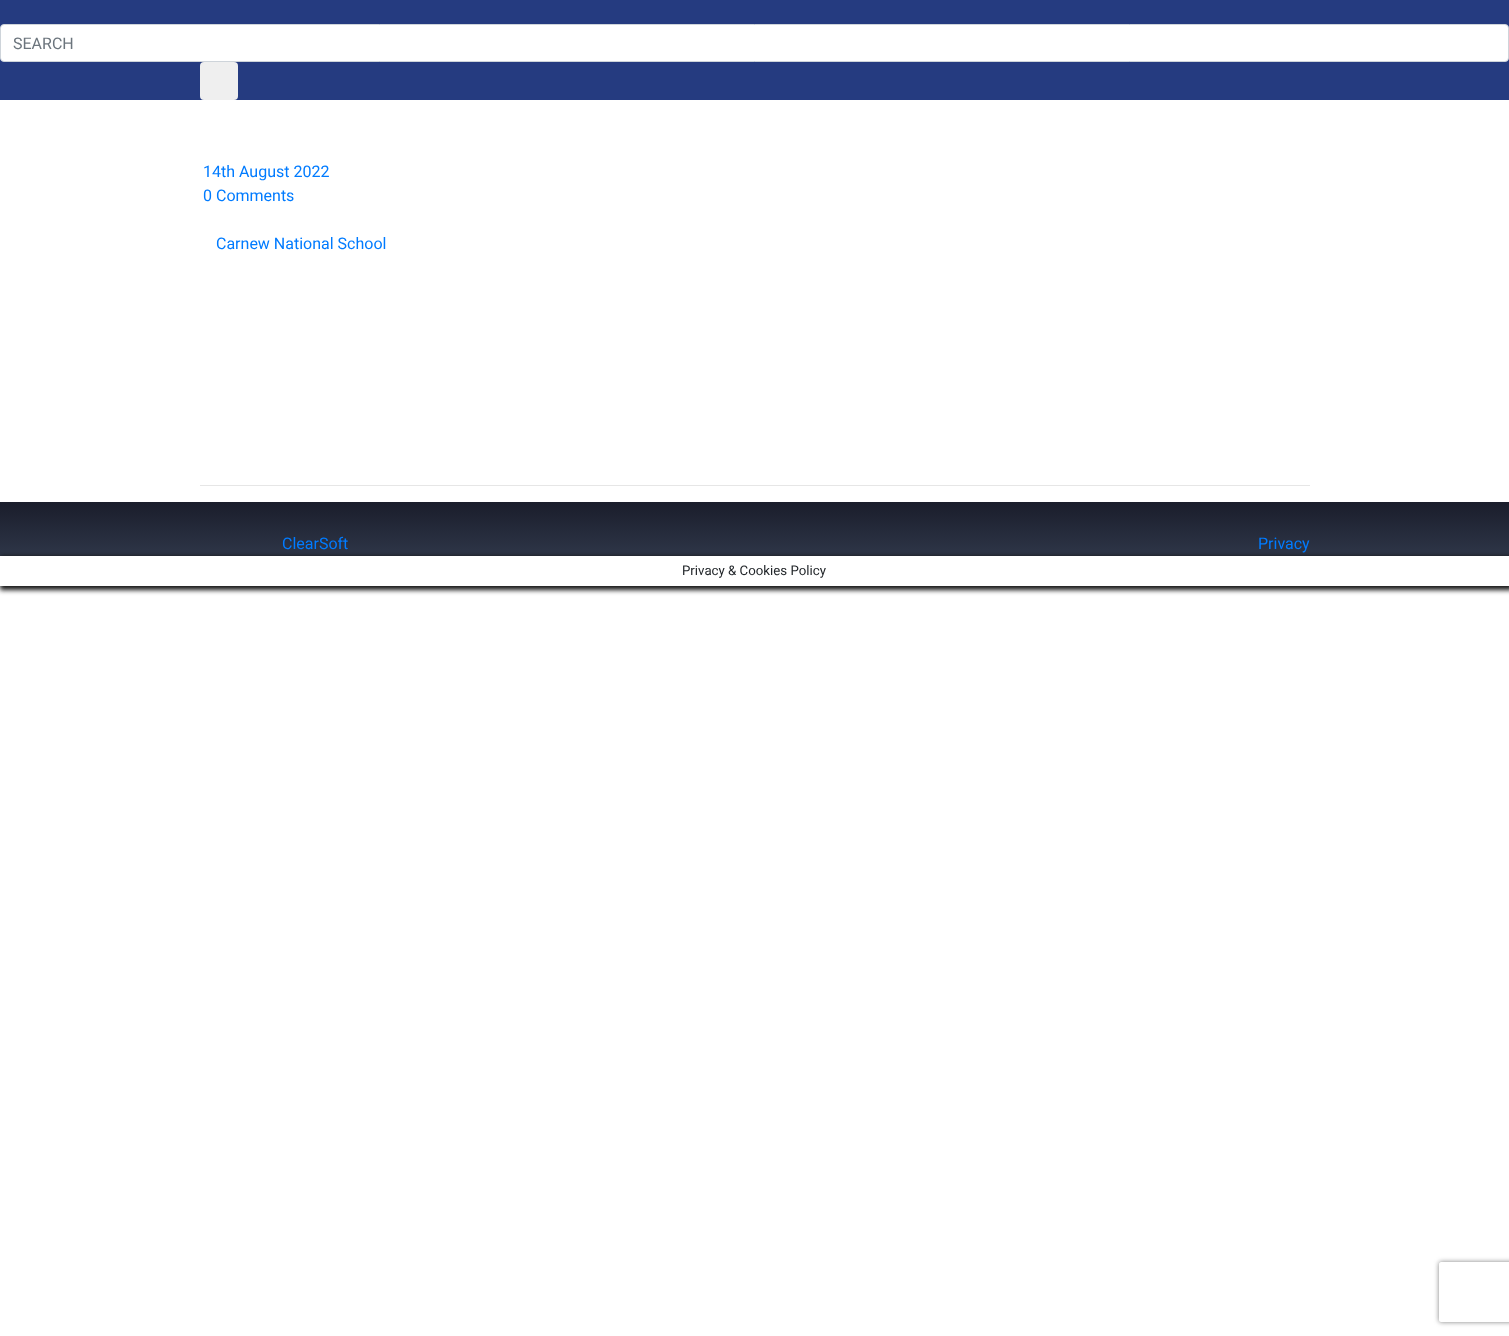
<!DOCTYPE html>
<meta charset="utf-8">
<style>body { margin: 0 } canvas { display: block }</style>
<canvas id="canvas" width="1509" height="1336"></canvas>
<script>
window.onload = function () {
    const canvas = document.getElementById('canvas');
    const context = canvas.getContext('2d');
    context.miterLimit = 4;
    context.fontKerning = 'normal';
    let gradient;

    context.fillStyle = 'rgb(255, 255, 255)';
    context.fillRect(0, 0, 1509, 1336);
    context.fillStyle = 'rgb(37, 59, 128)';
    context.fillRect(0, 0, 1509, 100);
    context.fillStyle = 'rgb(255, 255, 255)';
    context.beginPath();
    context.roundRect(0.5, 24.5, 1508, 37, 3.5);
    context.fill();
    context.strokeStyle = 'rgb(206, 212, 218)';
    context.stroke();
    context.fillStyle = 'rgb(239, 239, 239)';
    context.beginPath();
    context.roundRect(200, 62, 38, 38, 4);
    context.fill();
    context.fillStyle = 'rgb(230, 230, 230)';
    context.fillRect(200, 485, 1110, 1);
    gradient = context.createLinearGradient(755, 502, 755, 556);
    gradient.addColorStop(0, 'rgb(26, 29, 43)');
    gradient.addColorStop(1, 'rgb(46, 54, 72)');
    context.fillStyle = gradient;
    context.fillRect(0, 502, 1509, 54);
    context.save();
    context.beginPath();
    context.moveTo(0, 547);
    context.lineTo(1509, 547);
    context.lineTo(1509, 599);
    context.lineTo(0, 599);
    context.closePath();
    context.moveTo(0, 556);
    context.lineTo(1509, 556);
    context.lineTo(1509, 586);
    context.lineTo(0, 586);
    context.closePath();
    context.clip('evenodd');
    context.fillStyle = 'rgb(22, 22, 22)';
    context.filter = 'blur(2.5px)';
    context.beginPath();
    context.rect(0, 556, 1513, 34);
    context.fill();
    context.filter = 'none';
    context.restore();
    context.save();
    context.beginPath();
    context.moveTo(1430, 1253);
    context.lineTo(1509, 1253);
    context.lineTo(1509, 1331);
    context.lineTo(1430, 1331);
    context.closePath();
    context.moveTo(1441, 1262);
    context.lineTo(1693, 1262);
    context.bezierCurveTo(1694, 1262, 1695, 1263, 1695, 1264);
    context.lineTo(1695, 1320);
    context.bezierCurveTo(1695, 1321, 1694, 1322, 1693, 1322);
    context.lineTo(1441, 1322);
    context.bezierCurveTo(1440, 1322, 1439, 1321, 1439, 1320);
    context.lineTo(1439, 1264);
    context.bezierCurveTo(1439, 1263, 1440, 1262, 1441, 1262);
    context.closePath();
    context.clip('evenodd');
    context.fillStyle = 'rgb(128, 128, 128)';
    context.filter = 'blur(2.5px)';
    context.beginPath();
    context.roundRect(1439, 1262, 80, 60, 2);
    context.fill();
    context.filter = 'none';
    context.restore();
    context.font = '16px Roboto';
    context.fillStyle = 'rgb(108, 117, 125)';
    context.fillText('SEARCH', 13, 49);
    context.fillStyle = 'rgb(0, 123, 255)';
    context.fillText('14th August 2022', 203, 177);
    context.fillText('0 Comments', 203, 201);
    context.fillText('Carnew National School', 216, 249);
    context.fillText('ClearSoft', 282, 549);
    context.fillText('Privacy', 1258, 549);
    context.font = '13.25px Roboto';
    context.fillStyle = 'rgb(33, 37, 41)';
    context.fillText('Privacy & Cookies Policy', 682, 575);
};
</script>
